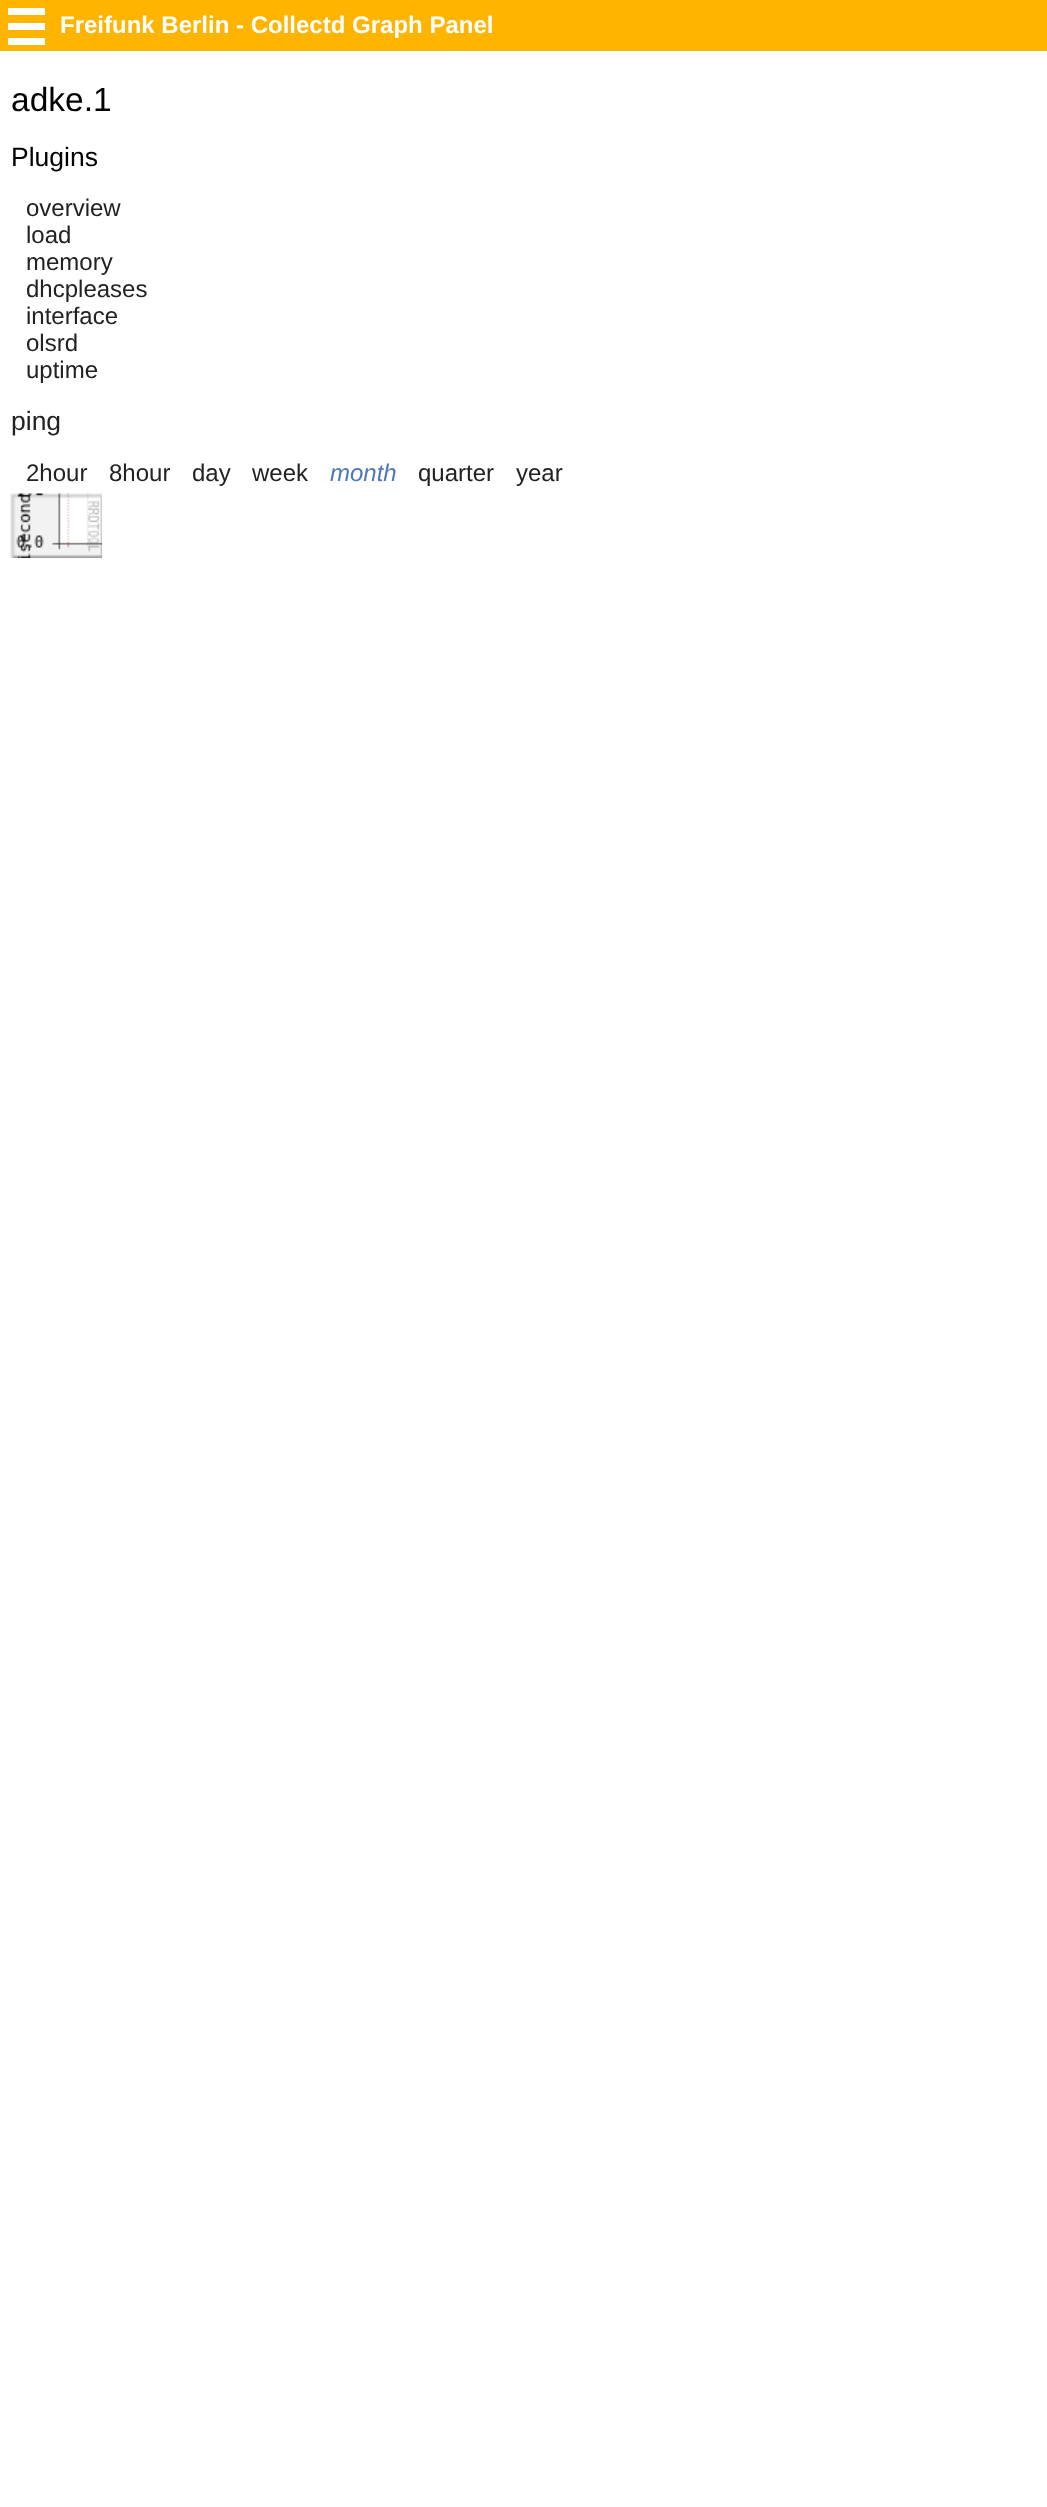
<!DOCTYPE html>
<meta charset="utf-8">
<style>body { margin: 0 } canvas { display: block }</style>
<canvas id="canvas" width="1047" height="2507"></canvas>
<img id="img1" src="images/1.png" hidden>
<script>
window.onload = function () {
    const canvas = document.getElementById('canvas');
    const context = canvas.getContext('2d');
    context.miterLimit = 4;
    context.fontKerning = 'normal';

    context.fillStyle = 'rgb(255, 255, 255)';
    context.fillRect(0, 0, 1047, 2507);
    context.fillStyle = 'rgb(255, 180, 0)';
    context.fillRect(0, 0, 1047, 51);
    context.fillStyle = 'rgb(255, 255, 255)';
    context.fillRect(8, 8, 37, 7);
    context.fillRect(8, 38, 37, 7);
    context.fillRect(8, 23, 37, 7);
    context.drawImage(document.getElementById('img1'), 10, 493, 92, 65);
    context.font = 'bold 24px Liberation Sans';
    context.fillText('Freifunk Berlin - Collectd Graph Panel', 60, 33);
    context.font = '33.5px Liberation Sans';
    context.fillStyle = 'rgb(0, 0, 0)';
    context.fillText('adke.1', 11, 111);
    context.font = '26.5px Liberation Sans';
    context.fillText('Plugins', 11, 166);
    context.font = '24px Liberation Sans';
    context.fillStyle = 'rgb(34, 34, 34)';
    context.fillText('overview', 26, 216);
    context.fillText('load', 26, 243);
    context.fillText('memory', 26, 270);
    context.fillText('dhcpleases', 26, 297);
    context.fillText('interface', 26, 324);
    context.fillText('olsrd', 26, 351);
    context.fillText('uptime', 26, 378);
    context.font = '26.5px Liberation Sans';
    context.fillText('ping', 11, 430);
    context.font = '24px Liberation Sans';
    context.fillText('2hour', 26, 481);
    context.fillText('8hour', 109, 481);
    context.fillText('day', 192, 481);
    context.fillText('week', 252, 481);
    context.font = 'italic 24px Liberation Sans';
    context.fillStyle = 'rgb(77, 121, 181)';
    context.fillText('month', 330, 481);
    context.font = '24px Liberation Sans';
    context.fillStyle = 'rgb(34, 34, 34)';
    context.fillText('quarter', 418, 481);
    context.fillText('year', 516, 481);
};
</script>
